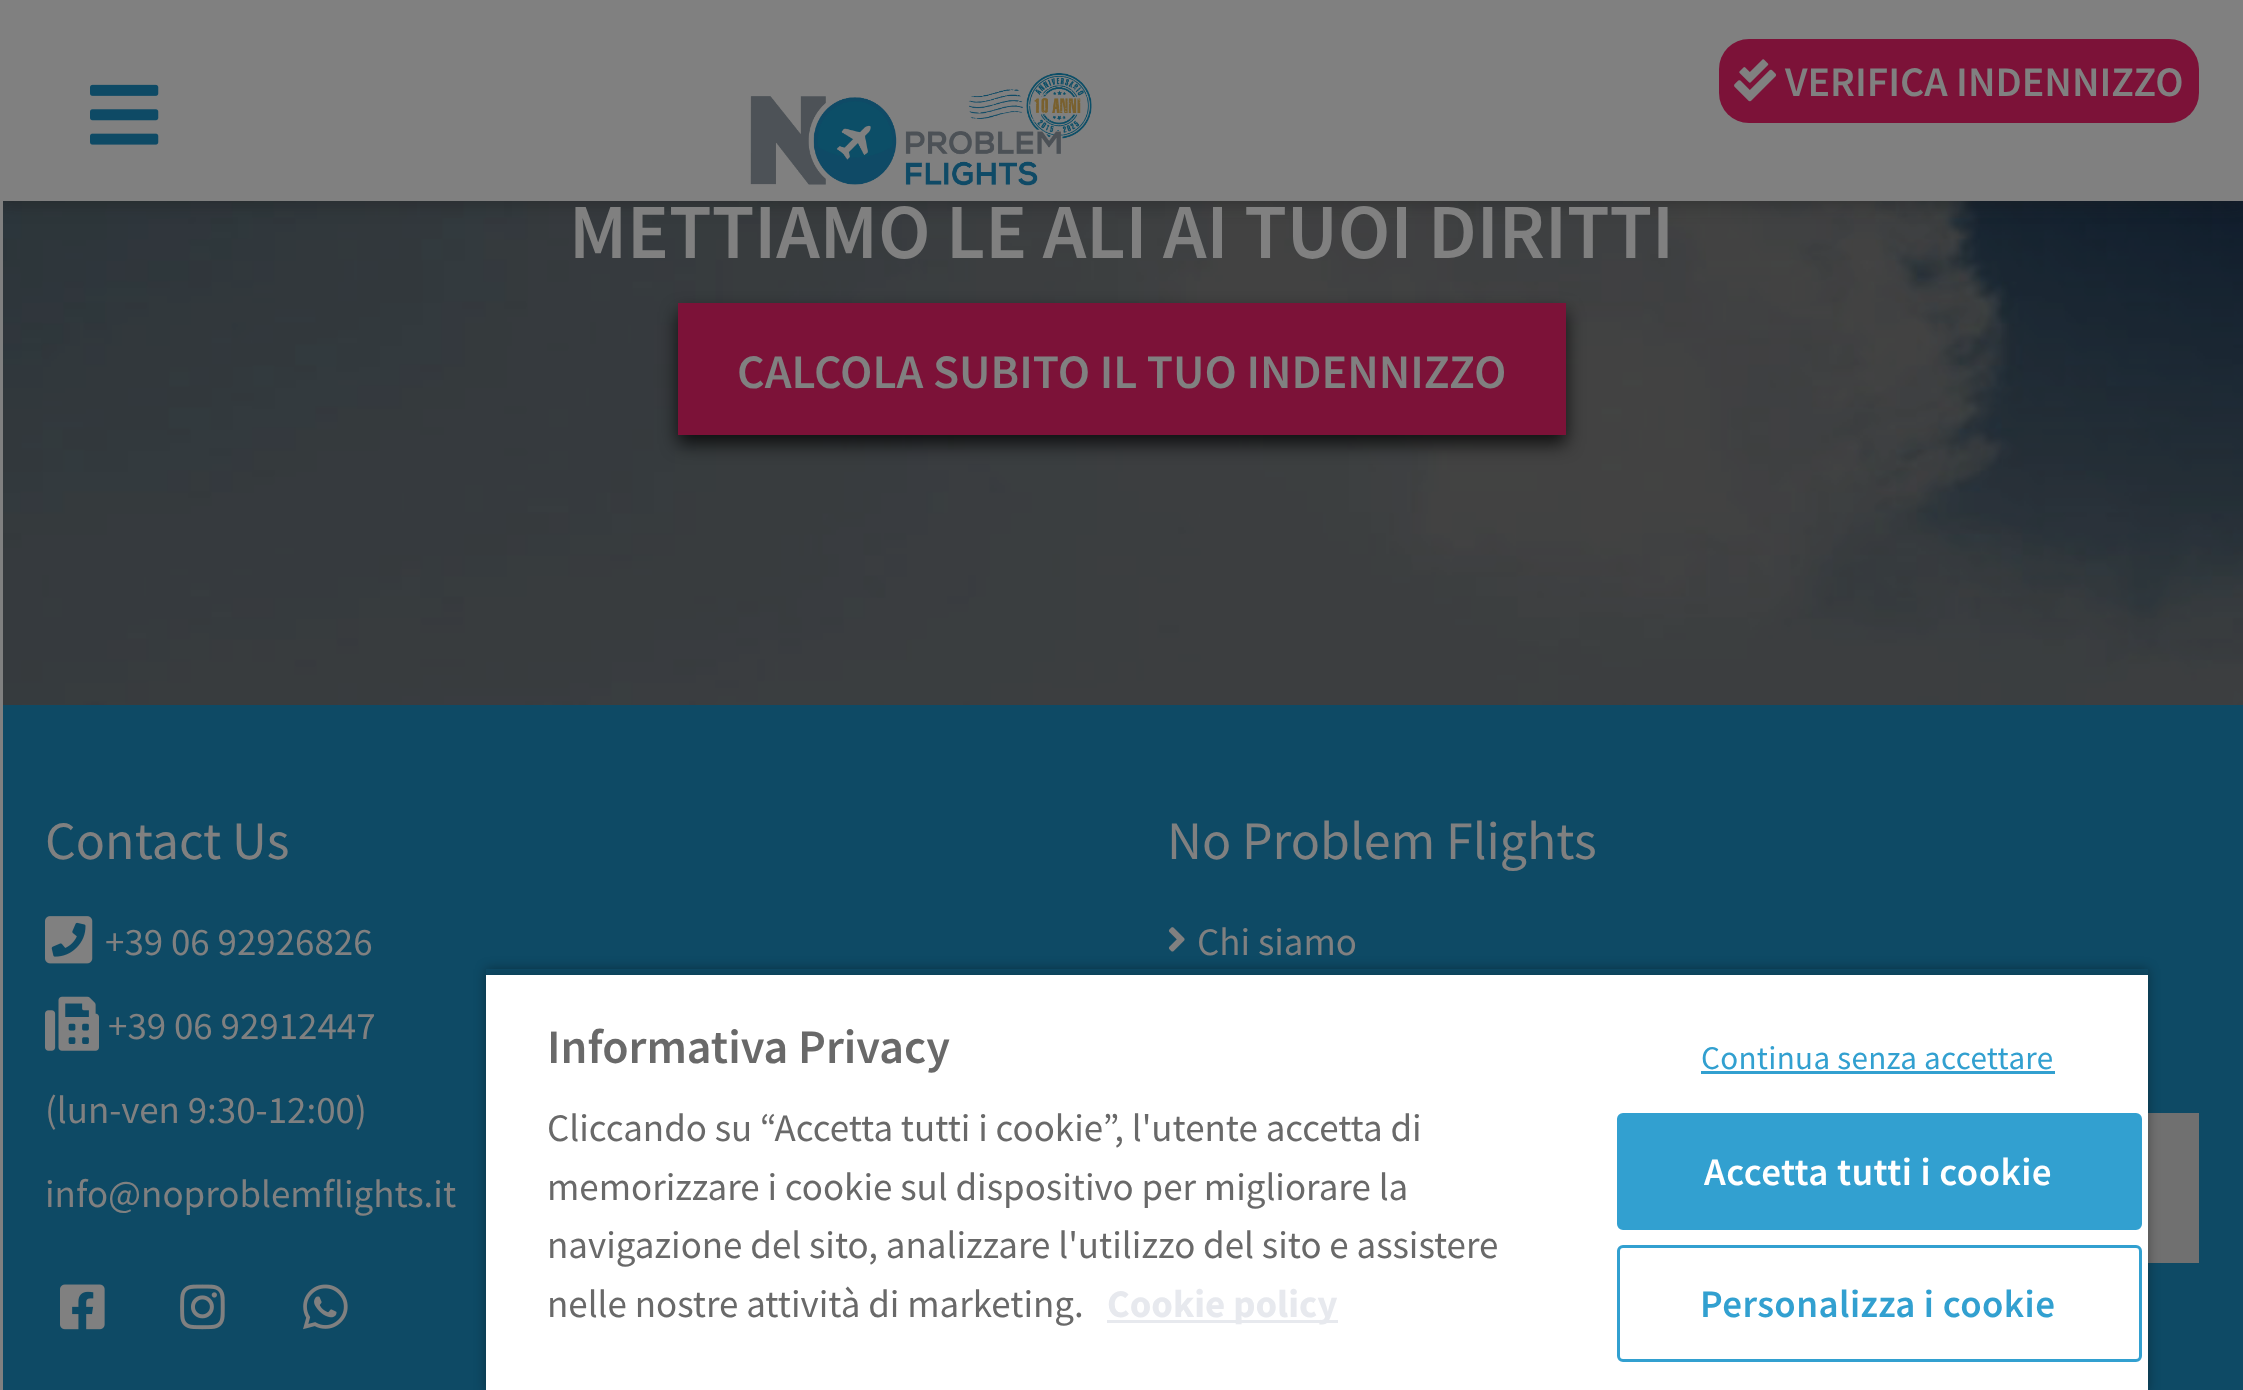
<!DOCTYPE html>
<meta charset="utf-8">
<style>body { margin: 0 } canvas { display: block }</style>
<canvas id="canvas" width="2243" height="1390"></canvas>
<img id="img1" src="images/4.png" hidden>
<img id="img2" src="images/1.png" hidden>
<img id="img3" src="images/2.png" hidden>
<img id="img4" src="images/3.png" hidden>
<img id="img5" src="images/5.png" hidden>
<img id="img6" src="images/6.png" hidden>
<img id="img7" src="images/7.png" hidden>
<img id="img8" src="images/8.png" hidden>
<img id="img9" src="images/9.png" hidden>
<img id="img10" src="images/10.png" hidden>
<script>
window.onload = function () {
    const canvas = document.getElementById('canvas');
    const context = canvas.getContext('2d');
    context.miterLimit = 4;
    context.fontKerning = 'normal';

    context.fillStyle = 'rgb(255, 255, 255)';
    context.fillRect(0, 0, 2243, 1390);
    context.drawImage(document.getElementById('img1'), 3, 201, 2240, 504);
    context.fillStyle = 'rgba(25, 25, 25, 0.38)';
    context.filter = 'blur(9px)';
    context.beginPath();
    context.rect(0, 3, 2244, 201);
    context.fill();
    context.filter = 'none';
    context.fillStyle = 'rgb(128, 128, 128)';
    context.fillRect(0, 0, 3, 1390);
    context.fillRect(3, 0, 2240, 201);
    context.drawImage(document.getElementById('img2'), 90, 84, 69, 61);
    context.drawImage(document.getElementById('img3'), 750, 73, 342, 113);
    context.fillStyle = 'rgb(124, 18, 56)';
    context.beginPath();
    context.roundRect(1719, 39, 480, 84, 30);
    context.fill();
    context.drawImage(document.getElementById('img4'), 1734, 59, 42, 43);
    context.fillStyle = 'rgba(0, 0, 0, 0.75)';
    context.filter = 'blur(9px)';
    context.beginPath();
    context.rect(678, 312, 888, 132);
    context.fill();
    context.filter = 'none';
    context.fillStyle = 'rgb(124, 18, 56)';
    context.fillRect(678, 303, 888, 132);
    context.fillStyle = 'rgb(14, 74, 101)';
    context.fillRect(3, 705, 2240, 685);
    context.drawImage(document.getElementById('img5'), 45, 916, 48, 48);
    context.drawImage(document.getElementById('img6'), 45, 996, 54, 55);
    context.drawImage(document.getElementById('img7'), 60, 1284, 45, 46);
    context.drawImage(document.getElementById('img8'), 180, 1284, 45, 46);
    context.drawImage(document.getElementById('img9'), 303, 1284, 45, 46);
    context.drawImage(document.getElementById('img10'), 1168, 927, 17, 25);
    context.fillStyle = 'rgb(112, 112, 112)';
    context.fillRect(2148, 1113, 51, 150);
    context.save();
    context.beginPath();
    context.moveTo(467, 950);
    context.lineTo(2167, 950);
    context.lineTo(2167, 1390);
    context.lineTo(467, 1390);
    context.closePath();
    context.moveTo(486, 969);
    context.lineTo(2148, 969);
    context.lineTo(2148, 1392);
    context.lineTo(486, 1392);
    context.closePath();
    context.clip('evenodd');
    context.fillStyle = 'rgba(0, 0, 0, 0.35)';
    context.filter = 'blur(6px)';
    context.beginPath();
    context.rect(486, 969, 1662, 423);
    context.fill();
    context.filter = 'none';
    context.restore();
    context.save();
    context.beginPath();
    context.rect(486, 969, 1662, 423);
    context.clip();
    context.fillStyle = 'rgba(0, 0, 0, 0.2)';
    context.filter = 'blur(6px)';
    context.beginPath();
    context.rect(486, 975, 1662, 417);
    context.fill();
    context.filter = 'none';
    context.restore();
    context.fillStyle = 'rgb(255, 255, 255)';
    context.fillRect(486, 975, 1662, 415);
    context.fillStyle = 'rgb(231, 233, 238)';
    context.fillRect(1107, 1320, 231, 3);
    context.fillStyle = 'rgb(50, 160, 208)';
    context.fillRect(1701, 1071, 354, 3);
    context.beginPath();
    context.roundRect(1618.5, 1114.5, 522, 114, 4.5);
    context.fill();
    context.strokeStyle = 'rgb(50, 160, 208)';
    context.lineWidth = 3;
    context.stroke();
    context.beginPath();
    context.roundRect(1618.5, 1246.5, 522, 114, 4.5);
    context.stroke();
    context.font = '600 42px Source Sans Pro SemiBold';
    context.fillStyle = 'rgb(128, 128, 128)';
    context.fillText('VERIFICA INDENNIZZO', 1785, 96);
    context.font = '600 78px Source Sans Pro SemiBold';
    context.fillText('METTIAMO LE ALI AI TUOI DIRITTI', 569, 258);
    context.font = '600 48px Source Sans Pro SemiBold';
    context.fillText('CALCOLA SUBITO IL TUO INDENNIZZO', 737, 388);
    context.font = '54px Source Sans Pro';
    context.fillText('Contact Us', 45, 859);
    context.font = '39px Source Sans Pro';
    context.fillText('+39 06 92926826', 105, 955);
    context.fillText('+39 06 92912447', 108, 1039);
    context.fillText('(lun-ven 9:30-12:00)', 45, 1123);
    context.fillText('info@noproblemflights.it', 45, 1207);
    context.font = '54px Source Sans Pro';
    context.fillText('No Problem Flights', 1167, 859);
    context.font = '39px Source Sans Pro';
    context.fillText('Chi siamo', 1197, 955);
    context.font = '600 48px Source Sans Pro SemiBold';
    context.fillStyle = 'rgb(105, 105, 105)';
    context.fillText('Informativa Privacy', 547, 1063);
    context.font = '39px Source Sans Pro';
    context.fillText('Cliccando su “Accetta tutti i cookie”, l\'utente accetta di', 547, 1141);
    context.fillText('memorizzare i cookie sul dispositivo per migliorare la', 547, 1200);
    context.fillText('navigazione del sito, analizzare l\'utilizzo del sito e assistere', 547, 1258);
    context.fillText('nelle nostre attività di marketing.', 547, 1317);
    context.font = 'bold 39px Source Sans Pro';
    context.fillStyle = 'rgb(231, 233, 238)';
    context.fillText('Cookie policy', 1107, 1317);
    context.letterSpacing = '0.3px';
    context.font = '33.1px Source Sans Pro';
    context.fillStyle = 'rgb(50, 160, 208)';
    context.fillText('Continua senza accettare', 1701, 1069);
    context.letterSpacing = '0.4px';
    context.font = '600 39px Source Sans Pro SemiBold';
    context.fillStyle = 'rgb(255, 255, 255)';
    context.fillText('Accetta tutti i cookie', 1704, 1185);
    context.fillStyle = 'rgb(50, 160, 208)';
    context.fillText('Personalizza i cookie', 1700, 1317);
};
</script>
